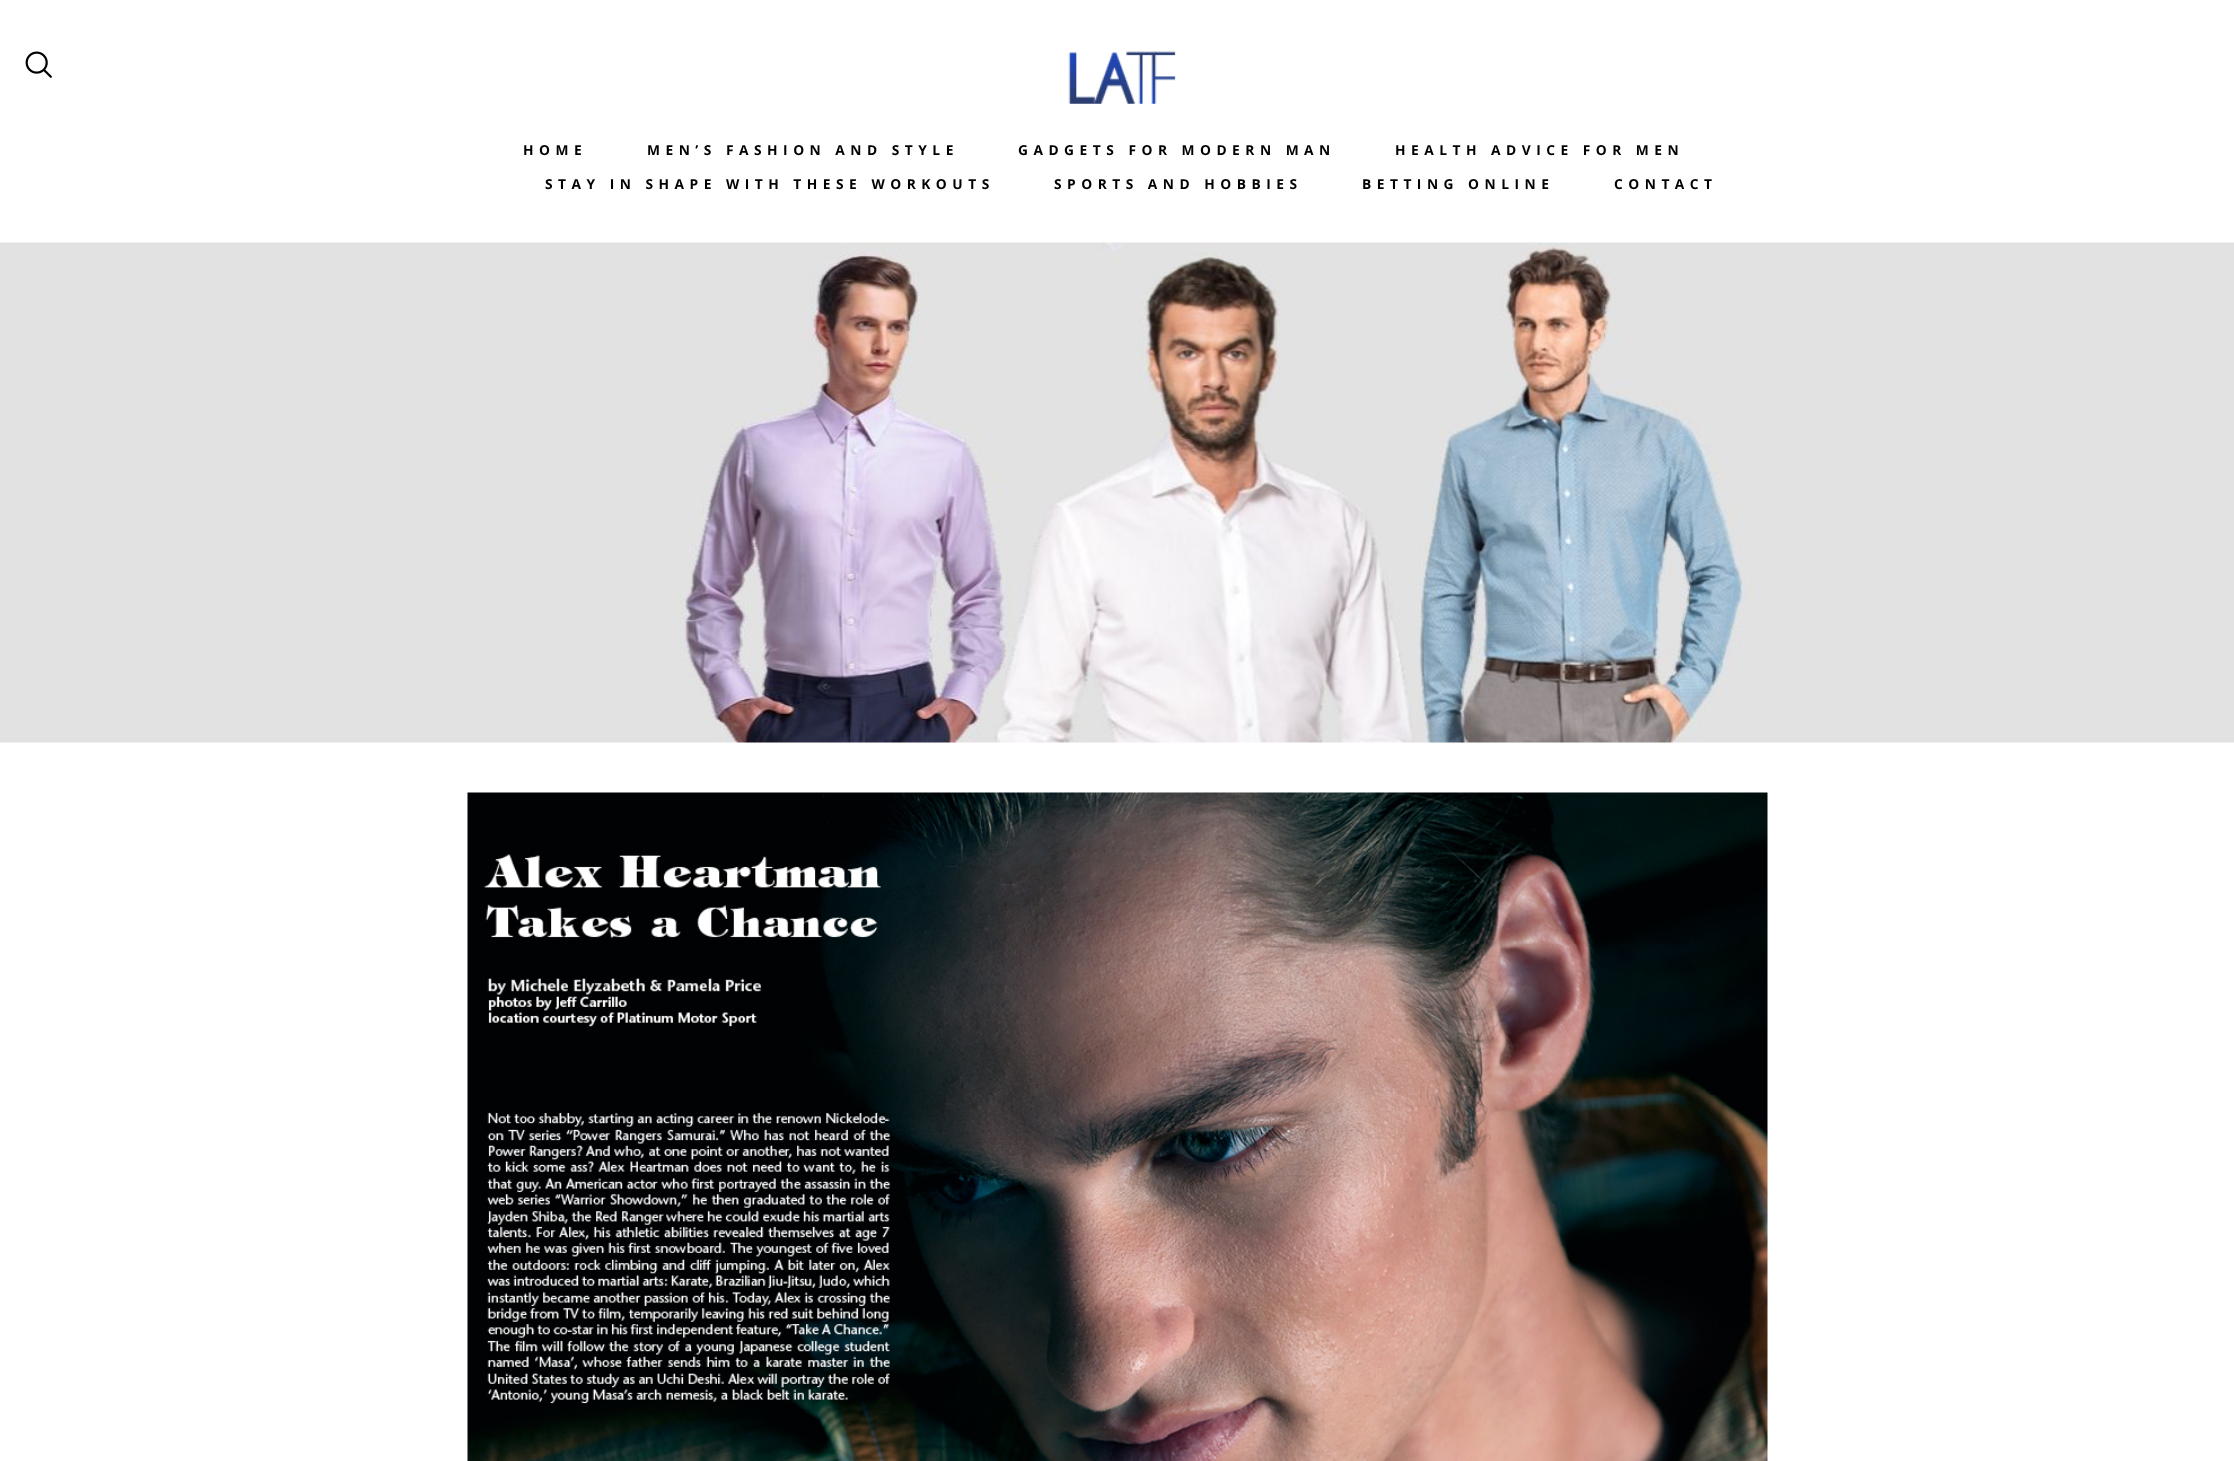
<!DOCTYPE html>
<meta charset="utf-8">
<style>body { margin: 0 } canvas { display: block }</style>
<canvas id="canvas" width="2234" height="1461"></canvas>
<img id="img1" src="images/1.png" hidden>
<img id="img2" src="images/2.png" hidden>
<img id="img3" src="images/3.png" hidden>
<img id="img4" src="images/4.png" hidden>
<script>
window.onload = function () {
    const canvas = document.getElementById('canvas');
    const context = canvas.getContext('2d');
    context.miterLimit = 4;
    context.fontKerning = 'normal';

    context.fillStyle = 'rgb(255, 255, 255)';
    context.fillRect(0, 0, 2234, 1461);
    context.drawImage(document.getElementById('img1'), 25, 51, 27, 27);
    context.drawImage(document.getElementById('img2'), 1068, 51, 108, 53);
    context.drawImage(document.getElementById('img3'), 0, 242, 2234, 501);
    context.drawImage(document.getElementById('img4'), 467, 792, 1301, 669);
    context.letterSpacing = '5.5px';
    context.font = 'bold 13.75px Open Sans';
    context.fillStyle = 'rgb(0, 0, 0)';
    context.fillText('HOME', 523, 155);
    context.fillText('MEN’S FASHION AND STYLE', 647, 155);
    context.fillText('GADGETS FOR MODERN MAN', 1018, 155);
    context.fillText('HEALTH ADVICE FOR MEN', 1395, 155);
    context.fillText('STAY IN SHAPE WITH THESE WORKOUTS', 545, 189);
    context.fillText('SPORTS AND HOBBIES', 1054, 189);
    context.fillText('BETTING ONLINE', 1362, 189);
    context.fillText('CONTACT', 1614, 189);
};
</script>
